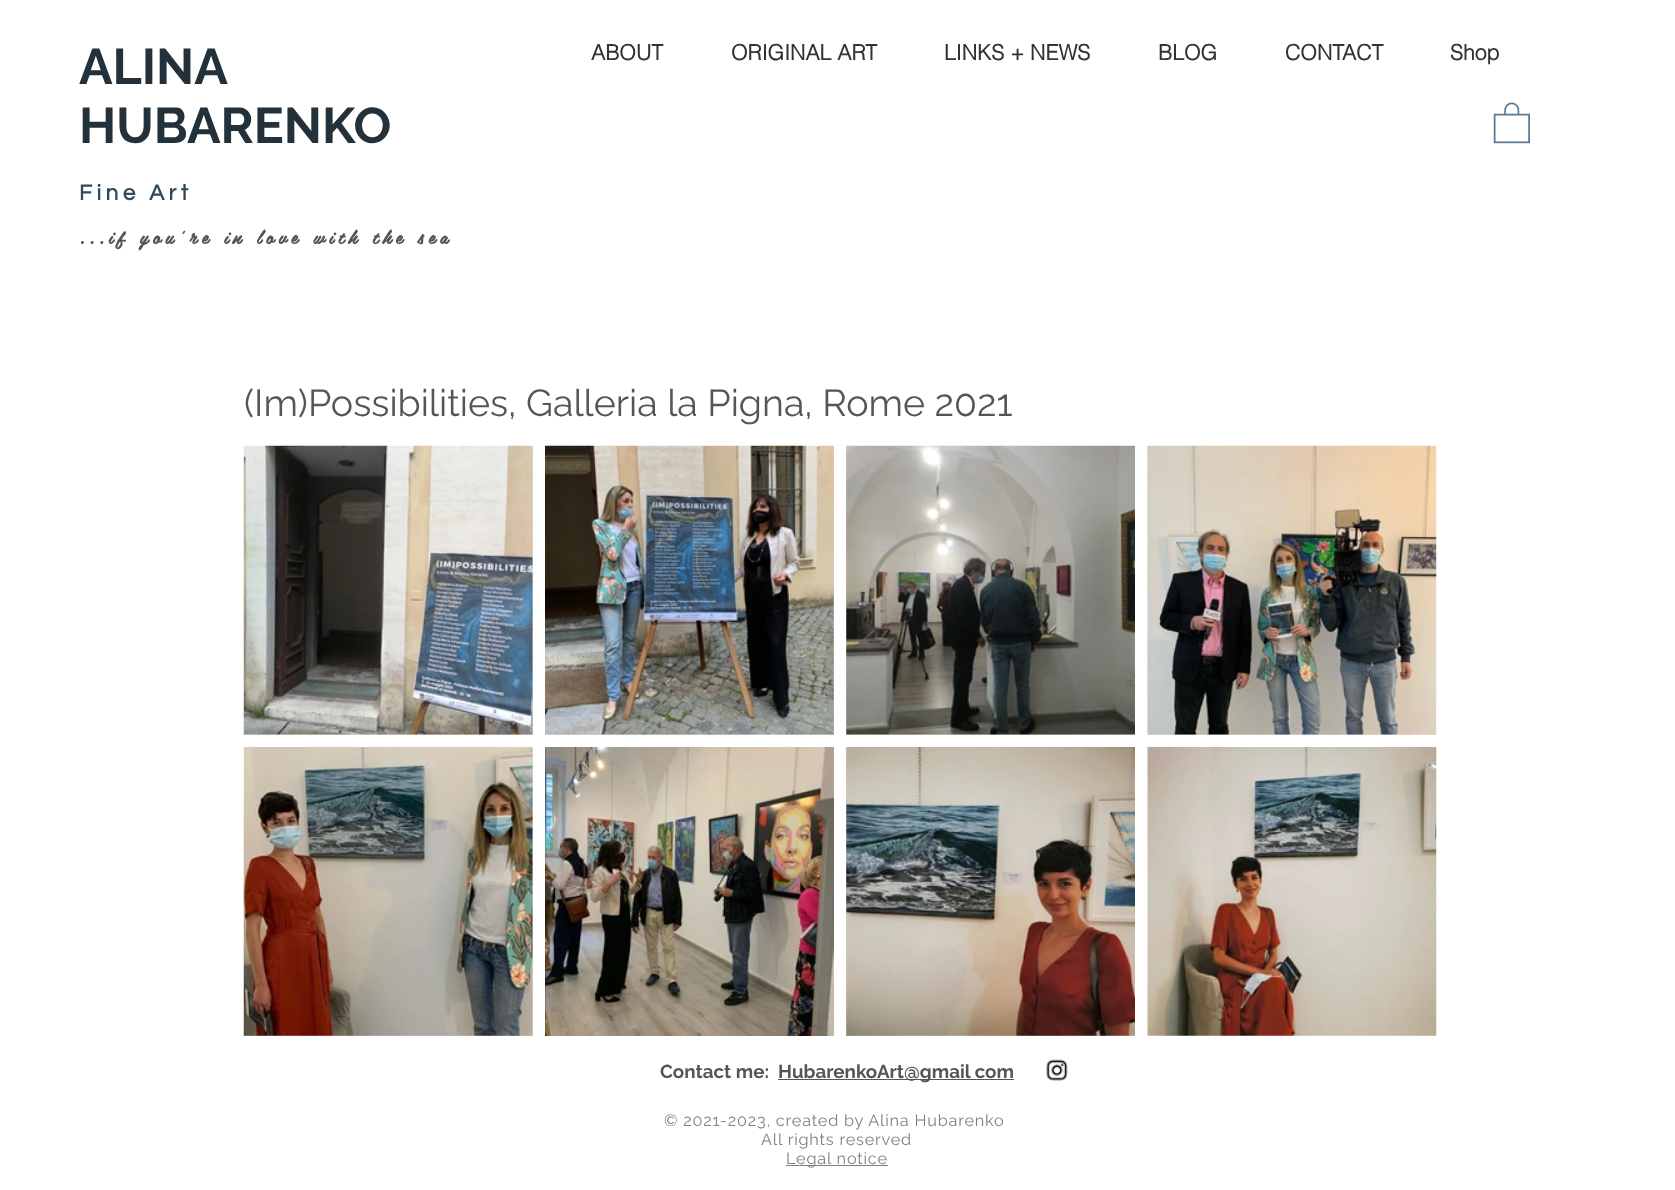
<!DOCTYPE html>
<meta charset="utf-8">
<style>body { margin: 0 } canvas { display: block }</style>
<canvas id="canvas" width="1675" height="1190"></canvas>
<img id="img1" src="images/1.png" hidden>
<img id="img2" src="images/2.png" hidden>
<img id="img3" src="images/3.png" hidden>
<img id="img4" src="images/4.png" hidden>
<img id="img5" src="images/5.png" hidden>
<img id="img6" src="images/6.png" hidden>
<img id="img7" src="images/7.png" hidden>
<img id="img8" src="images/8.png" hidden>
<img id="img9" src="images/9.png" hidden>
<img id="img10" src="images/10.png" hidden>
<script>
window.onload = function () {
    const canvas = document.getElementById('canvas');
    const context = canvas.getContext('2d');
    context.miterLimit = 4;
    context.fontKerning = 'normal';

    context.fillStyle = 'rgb(255, 255, 255)';
    context.fillRect(0, 0, 1675, 1190);
    context.drawImage(document.getElementById('img1'), 1493, 102, 37, 42);
    context.fillStyle = 'rgb(214, 214, 214)';
    context.fillRect(244, 446, 289, 289);
    context.drawImage(document.getElementById('img2'), 243, 445, 290, 290);
    context.fillRect(545, 446, 289, 289);
    context.drawImage(document.getElementById('img3'), 545, 445, 289, 290);
    context.fillRect(846, 446, 289, 289);
    context.drawImage(document.getElementById('img4'), 846, 445, 289, 290);
    context.fillRect(1148, 734, 288, 1);
    context.drawImage(document.getElementById('img5'), 1147, 445, 290, 290);
    context.fillRect(244, 748, 289, 288);
    context.drawImage(document.getElementById('img6'), 243, 747, 290, 289);
    context.drawImage(document.getElementById('img7'), 545, 747, 289, 289);
    context.fillRect(846, 748, 289, 288);
    context.drawImage(document.getElementById('img8'), 846, 747, 289, 289);
    context.drawImage(document.getElementById('img9'), 1147, 747, 290, 289);
    context.fillStyle = 'rgb(85, 85, 85)';
    context.fillRect(778, 1079, 236, 1);
    context.drawImage(document.getElementById('img10'), 1046, 1059, 22, 22);
    context.fillStyle = 'rgb(128, 128, 128)';
    context.fillRect(786, 1165, 102, 1);
    context.font = 'bold 50px Raleway';
    context.fillStyle = 'rgb(35, 49, 59)';
    context.fillText('ALINA', 79, 84);
    context.fillText('HUBARENKO', 79, 143);
    context.letterSpacing = '4.5px';
    context.font = 'bold 22.5px Questrial';
    context.fillStyle = 'rgb(51, 73, 87)';
    context.fillText('Fine Art', 79, 200);
    context.letterSpacing = '4.7px';
    context.font = 'bold 18.75px "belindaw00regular"';
    context.fillStyle = 'rgb(85, 85, 85)';
    context.fillText('...if you\'re in love with the sea', 79, 244);
    context.letterSpacing = '0px';
    context.font = 'bold 21.25px helvetica';
    context.fillStyle = 'rgb(51, 51, 51)';
    context.fillText('ABOUT', 591, 60);
    context.fillText('ORIGINAL ART', 731, 60);
    context.fillText('LINKS + NEWS', 944, 60);
    context.fillText('BLOG', 1158, 60);
    context.fillText('CONTACT', 1285, 60);
    context.fillText('Shop', 1450, 60);
    context.font = '37.5px Raleway';
    context.fillStyle = 'rgb(85, 85, 85)';
    context.fillText('(Im)Possibilities, Galleria la Pigna, Rome 2021', 244, 416);
    context.font = 'bold 18.75px Raleway';
    context.fillText('Contact me:', 660, 1078);
    context.fillText('HubarenkoArt@gmail com', 778, 1078);
    context.letterSpacing = '0.8px';
    context.font = '16.25px Raleway';
    context.fillStyle = 'rgb(128, 128, 128)';
    context.fillText('© 2021-2023, created by Alina Hubarenko', 664, 1126);
    context.fillText('All rights reserved', 761, 1145);
    context.fillText('Legal notice', 786, 1164);
};
</script>
